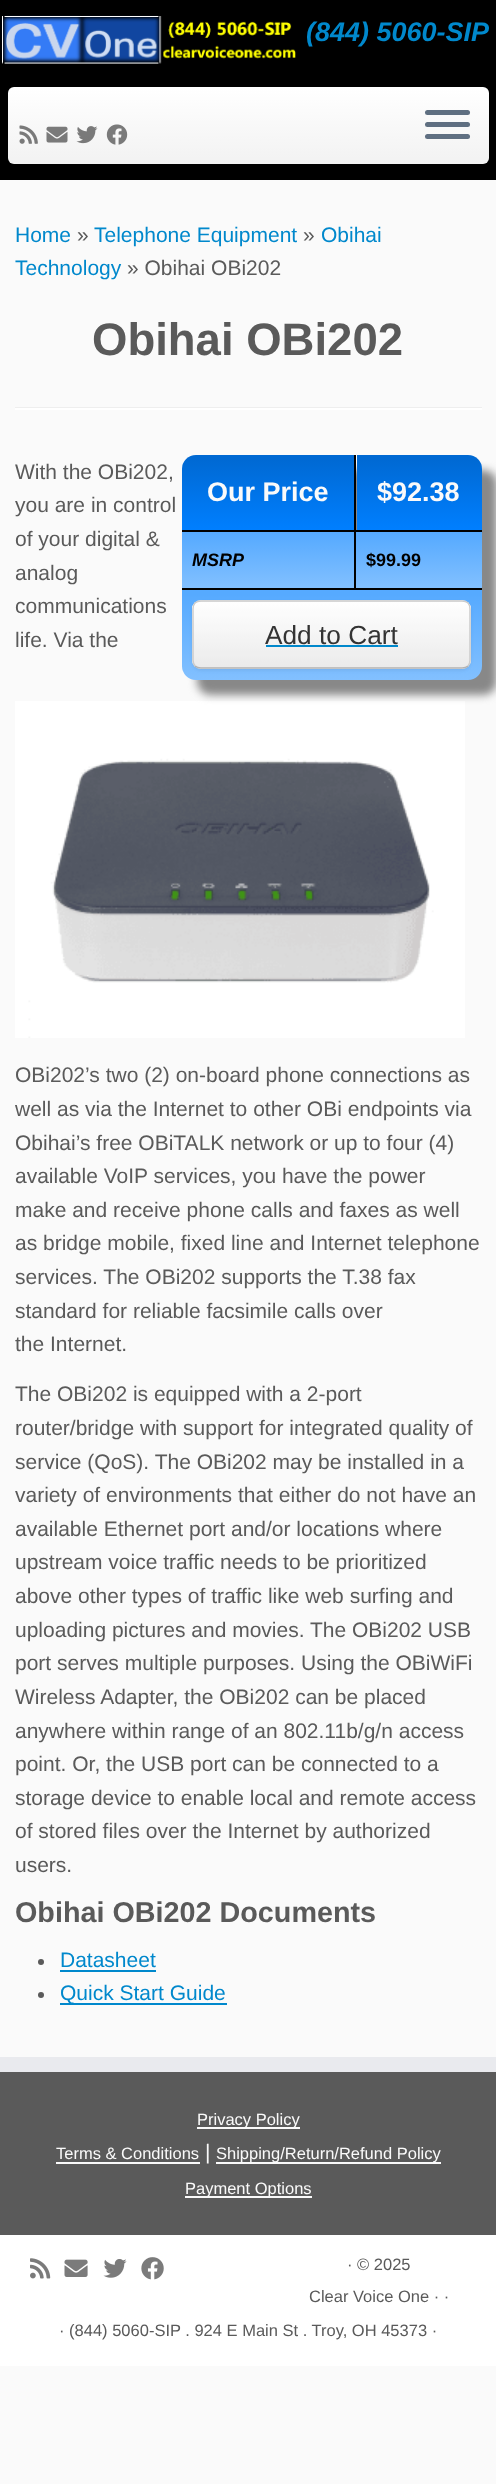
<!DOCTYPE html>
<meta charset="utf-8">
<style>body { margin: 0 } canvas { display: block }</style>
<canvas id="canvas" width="496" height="2484"></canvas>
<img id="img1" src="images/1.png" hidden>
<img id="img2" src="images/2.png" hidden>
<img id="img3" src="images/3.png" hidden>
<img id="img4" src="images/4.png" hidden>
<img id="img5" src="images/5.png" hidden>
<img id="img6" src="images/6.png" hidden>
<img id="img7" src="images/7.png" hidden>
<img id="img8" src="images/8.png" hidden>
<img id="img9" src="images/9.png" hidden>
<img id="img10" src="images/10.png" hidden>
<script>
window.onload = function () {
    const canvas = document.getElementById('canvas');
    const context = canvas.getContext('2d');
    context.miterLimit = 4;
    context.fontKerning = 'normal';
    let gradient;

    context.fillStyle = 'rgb(250, 250, 250)';
    context.fillRect(0, 0, 496, 2484);
    context.fillStyle = 'rgb(0, 0, 0)';
    context.fillRect(0, 0, 496, 180);
    context.drawImage(document.getElementById('img1'), 1, 15, 295, 49);
    gradient = context.createLinearGradient(248, 87, 248, 164);
    gradient.addColorStop(0, 'rgb(255, 255, 255)');
    gradient.addColorStop(1, 'rgb(242, 242, 242)');
    context.fillStyle = gradient;
    context.beginPath();
    context.roundRect(8, 87, 481, 77, 6);
    context.fill();
    context.drawImage(document.getElementById('img2'), 19, 125, 19, 19);
    context.drawImage(document.getElementById('img3'), 46, 126, 22, 17);
    context.drawImage(document.getElementById('img4'), 76, 126, 22, 18);
    context.drawImage(document.getElementById('img5'), 106, 124, 22, 21);
    context.fillStyle = 'rgb(95, 111, 129)';
    context.beginPath();
    context.roundRect(425, 110, 45, 5, 2.5);
    context.fill();
    context.beginPath();
    context.roundRect(425, 122, 45, 5, 2.5);
    context.fill();
    context.beginPath();
    context.roundRect(425, 134, 45, 5, 2.5);
    context.fill();
    context.fillStyle = 'rgb(238, 238, 238)';
    context.fillRect(15, 407, 467, 1);
    context.fillStyle = 'rgb(255, 255, 255)';
    context.fillRect(15, 408, 467, 2);
    context.drawImage(document.getElementById('img6'), 15, 701, 450, 337);
    context.fillStyle = 'rgb(136, 136, 136)';
    context.filter = 'blur(4px)';
    context.beginPath();
    context.roundRect(197, 470, 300, 225, 14);
    context.fill();
    context.filter = 'none';
    gradient = context.createLinearGradient(182, 455, 182, 530);
    gradient.addColorStop(0.05, 'rgb(0, 105, 211)');
    gradient.addColorStop(1, 'rgb(0, 127, 255)');
    context.fillStyle = gradient;
    context.beginPath();
    context.roundRect(182, 455, 174, 75, [14, 0, 0, 0]);
    context.fill();
    context.fillStyle = 'rgb(0, 0, 0)';
    context.fillRect(354, 588, 128, 2);
    context.fillRect(354, 530, 2, 60);
    context.fillRect(354, 530, 128, 2);
    context.fillRect(354, 455, 2, 76);
    context.fillRect(182, 530, 174, 2);
    gradient = context.createLinearGradient(357, 455, 357, 530);
    gradient.addColorStop(0.05, 'rgb(0, 105, 211)');
    gradient.addColorStop(1, 'rgb(0, 127, 255)');
    context.fillStyle = gradient;
    context.beginPath();
    context.roundRect(357, 455, 125, 75, [0, 14, 0, 0]);
    context.fill();
    gradient = context.createLinearGradient(182, 531, 182, 588);
    gradient.addColorStop(0.05, 'rgb(86, 170, 255)');
    gradient.addColorStop(1, 'rgb(130, 192, 255)');
    context.fillStyle = gradient;
    context.fillRect(182, 532, 172, 56);
    context.fillStyle = 'rgb(0, 0, 0)';
    context.fillRect(182, 588, 174, 2);
    gradient = context.createLinearGradient(356, 531, 356, 588);
    gradient.addColorStop(0.05, 'rgb(86, 170, 255)');
    gradient.addColorStop(1, 'rgb(130, 192, 255)');
    context.fillStyle = gradient;
    context.fillRect(356, 532, 126, 56);
    gradient = context.createLinearGradient(182, 590, 182, 680);
    gradient.addColorStop(0.05, 'rgb(86, 170, 255)');
    gradient.addColorStop(1, 'rgb(130, 192, 255)');
    context.fillStyle = gradient;
    context.beginPath();
    context.roundRect(182, 590, 300, 90, [0, 0, 14, 14]);
    context.fill();
    context.fillStyle = 'rgba(0, 0, 0, 0.05)';
    context.filter = 'blur(1.5px)';
    context.beginPath();
    context.roundRect(192, 602, 279, 69, 9);
    context.fill();
    context.filter = 'none';
    context.fillStyle = 'rgb(245, 245, 245)';
    context.beginPath();
    context.roundRect(192, 600, 279, 69, 9);
    context.fill();
    context.save();
    context.beginPath();
    context.roundRect(192, 600, 279, 69, 9);
    context.clip();
    gradient = context.createLinearGradient(332, 602, 332, 668);
    gradient.addColorStop(0, 'rgb(255, 255, 255)');
    gradient.addColorStop(1, 'rgb(230, 230, 230)');
    context.fillStyle = gradient;
    context.fillRect(192, 602, 279, 66);
    context.restore();
    context.fillStyle = 'rgba(255, 255, 255, 0.2)';
    context.beginPath();
    context.moveTo(202, 602);
    context.bezierCurveTo(198, 602, 194, 606, 194, 610);
    context.lineTo(194, 660);
    context.bezierCurveTo(194, 664, 198, 668, 202, 668);
    context.lineTo(462, 668);
    context.bezierCurveTo(466, 668, 470, 664, 470, 660);
    context.lineTo(470, 610);
    context.bezierCurveTo(470, 606, 466, 602, 462, 602);
    context.closePath();
    context.fill();
    context.beginPath();
    context.moveTo(468, 666);
    context.bezierCurveTo(466.5, 667.5, 464, 668, 462, 668);
    context.lineTo(201, 668);
    context.bezierCurveTo(199, 668, 196.5, 667.5, 195, 666);
    context.strokeStyle = 'rgb(179, 179, 179)';
    context.lineWidth = 1.5;
    context.stroke();
    context.beginPath();
    context.moveTo(195, 666);
    context.bezierCurveTo(193.5, 664.5, 193, 662, 193, 660);
    context.lineTo(193, 609);
    context.bezierCurveTo(193, 607, 193.5, 604.5, 195, 603);
    context.bezierCurveTo(196.5, 601.5, 199, 601, 201, 601);
    context.lineTo(462, 601);
    context.bezierCurveTo(464, 601, 466.5, 601.5, 468, 603);
    context.bezierCurveTo(469.5, 604.5, 470, 607, 470, 609);
    context.lineTo(470, 660);
    context.bezierCurveTo(470, 662, 469.5, 664.5, 468, 666);
    context.strokeStyle = 'rgb(204, 204, 204)';
    context.stroke();
    context.fillStyle = 'rgb(0, 136, 204)';
    context.fillRect(266, 645, 132, 2);
    context.fillStyle = 'rgb(90, 90, 90)';
    context.beginPath();
    context.arc(41, 1962, 3, 0, 2 * Math.PI);
    context.fill();
    context.fillStyle = 'rgb(0, 136, 204)';
    context.fillRect(60, 1970, 96, 2);
    context.fillStyle = 'rgb(90, 90, 90)';
    context.beginPath();
    context.arc(41, 1995, 3, 0, 2 * Math.PI);
    context.fill();
    context.fillStyle = 'rgb(0, 136, 204)';
    context.fillRect(60, 2003, 167, 2);
    context.fillStyle = 'rgb(90, 90, 90)';
    context.fillRect(0, 2072, 496, 163);
    context.fillStyle = 'rgb(233, 234, 238)';
    context.fillRect(0, 2057, 496, 15);
    context.fillStyle = 'rgb(250, 250, 250)';
    context.fillRect(197, 2127, 103, 2);
    context.fillRect(56, 2162, 144, 2);
    context.fillRect(216, 2162, 225, 2);
    context.fillRect(185, 2196, 127, 2);
    context.fillStyle = 'rgb(255, 255, 255)';
    context.fillRect(0, 2235, 496, 131);
    context.drawImage(document.getElementById('img7'), 30, 2258, 21, 21);
    context.drawImage(document.getElementById('img8'), 64, 2259, 24, 18);
    context.drawImage(document.getElementById('img9'), 103, 2259, 24, 19);
    context.drawImage(document.getElementById('img10'), 141, 2257, 23, 23);
    context.font = 'italic bold 27px Liberation Sans';
    context.fillStyle = 'rgb(0, 136, 204)';
    context.fillText('(844) 5060-SIP', 306, 41);
    context.font = '21px Liberation Sans';
    context.fillText('Home', 15, 242);
    context.fillStyle = 'rgb(90, 90, 90)';
    context.fillText('»', 77, 242);
    context.fillStyle = 'rgb(0, 136, 204)';
    context.fillText('Telephone Equipment', 94, 242);
    context.fillStyle = 'rgb(90, 90, 90)';
    context.fillText('»', 303, 242);
    context.fillStyle = 'rgb(0, 136, 204)';
    context.fillText('Obihai', 321, 242);
    context.fillText('Technology', 15, 275);
    context.fillStyle = 'rgb(90, 90, 90)';
    context.fillText('» Obihai OBi202', 127, 275);
    context.font = 'bold 45.5px Liberation Sans';
    context.fillText('Obihai OBi202', 92, 355);
    context.font = '21px Liberation Sans';
    context.fillText('With the OBi202,', 15, 479);
    context.fillText('you are in control', 15, 512);
    context.fillText('of your digital &', 15, 546);
    context.fillText('analog', 15, 580);
    context.fillText('communications', 15, 613);
    context.fillText('life. Via the', 15, 647);
    context.fillText('OBi202’s two (2) on-board phone connections as', 15, 1082);
    context.fillText('well as via the Internet to other OBi endpoints via', 15, 1116);
    context.fillText('Obihai’s free OBiTALK network or up to four (4)', 15, 1150);
    context.fillText('available VoIP services, you have the power', 15, 1183);
    context.fillText('make and receive phone calls and faxes as well', 15, 1217);
    context.fillText('as bridge mobile, fixed line and Internet telephone', 15, 1250);
    context.fillText('services. The OBi202 supports the T.38 fax', 15, 1284);
    context.fillText('standard for reliable facsimile calls over', 15, 1318);
    context.fillText('the Internet.', 15, 1351);
    context.font = 'bold 27px Liberation Sans';
    context.fillStyle = 'rgb(250, 250, 250)';
    context.fillText('Our Price', 207, 501);
    context.fillText('$92.38', 377, 501);
    context.font = 'italic bold 18px Liberation Sans';
    context.fillStyle = 'rgb(0, 0, 0)';
    context.fillText('MSRP', 192, 566);
    context.font = 'bold 18px Liberation Sans';
    context.fillText('$99.99', 366, 566);
    context.font = '26.25px Liberation Sans';
    context.fillStyle = 'rgb(51, 51, 51)';
    context.fillText('Add to Cart', 265, 644);
    context.font = '21px Liberation Sans';
    context.fillStyle = 'rgb(90, 90, 90)';
    context.fillText('The OBi202 is equipped with a 2-port', 15, 1401);
    context.fillText('router/bridge with support for integrated quality of', 15, 1435);
    context.fillText('service (QoS). The OBi202 may be installed in a', 15, 1469);
    context.fillText('variety of environments that either do not have an', 15, 1502);
    context.fillText('available Ethernet port and/or locations where', 15, 1536);
    context.fillText('upstream voice traffic needs to be prioritized', 15, 1569);
    context.fillText('above other types of traffic like web surfing and', 15, 1603);
    context.fillText('uploading pictures and movies. The OBi202 USB', 15, 1637);
    context.fillText('port serves multiple purposes. Using the OBiWiFi', 15, 1670);
    context.fillText('Wireless Adapter, the OBi202 can be placed', 15, 1704);
    context.fillText('anywhere within range of an 802.11b/g/n access', 15, 1738);
    context.fillText('point. Or, the USB port can be connected to a', 15, 1771);
    context.fillText('storage device to enable local and remote access', 15, 1805);
    context.fillText('of stored files over the Internet by authorized', 15, 1838);
    context.fillText('users.', 15, 1872);
    context.font = 'bold 28.75px Liberation Sans';
    context.fillText('Obihai OBi202 Documents', 15, 1922);
    context.font = '21px Liberation Sans';
    context.fillStyle = 'rgb(0, 136, 204)';
    context.fillText('Datasheet', 60, 1967);
    context.fillText('Quick Start Guide', 60, 2000);
    context.font = '16.5px Liberation Sans';
    context.fillStyle = 'rgb(250, 250, 250)';
    context.fillText('Privacy Policy', 197, 2125);
    context.fillText('Terms & Conditions', 56, 2159);
    context.font = '21px Liberation Sans';
    context.fillText('|', 205, 2159);
    context.font = '16.5px Liberation Sans';
    context.fillText('Shipping/Return/Refund Policy', 216, 2159);
    context.fillText('Payment Options', 185, 2194);
    context.fillStyle = 'rgb(90, 90, 90)';
    context.fillText('· © 2025', 347, 2270);
    context.fillText('Clear Voice One · ·', 309, 2302);
    context.fillText('· (844) 5060-SIP . 924 E Main St . Troy, OH 45373 ·', 59, 2336);
};
</script>
